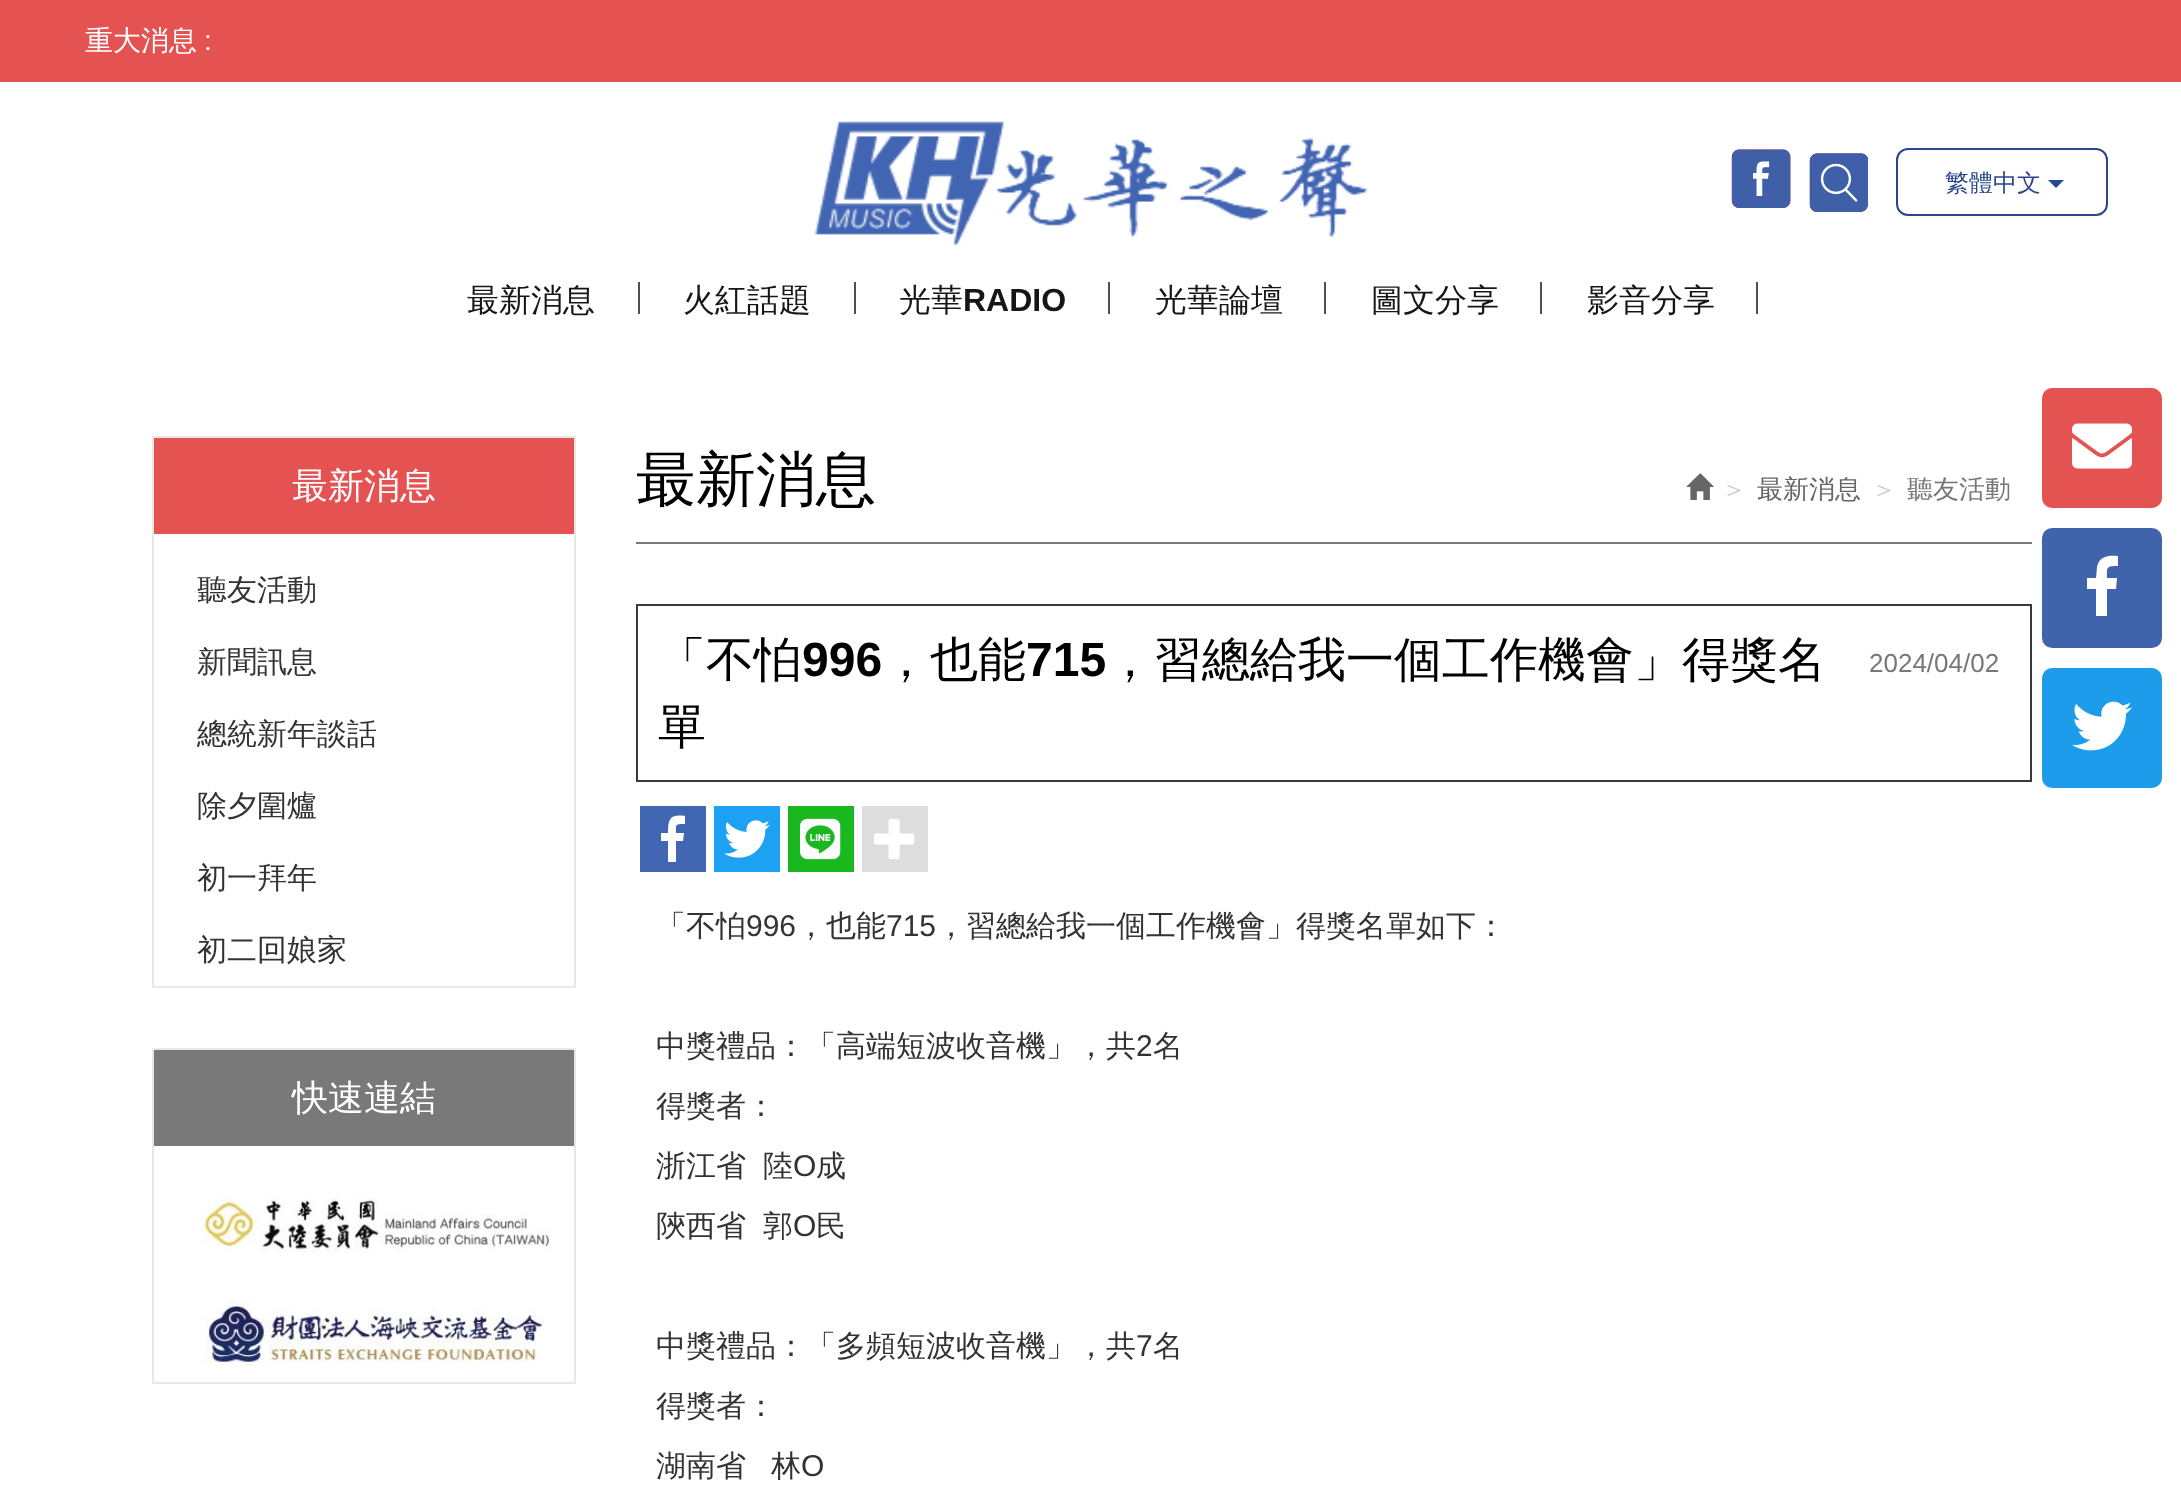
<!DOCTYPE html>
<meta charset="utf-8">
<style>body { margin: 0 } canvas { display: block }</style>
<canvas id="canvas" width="2181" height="1498"></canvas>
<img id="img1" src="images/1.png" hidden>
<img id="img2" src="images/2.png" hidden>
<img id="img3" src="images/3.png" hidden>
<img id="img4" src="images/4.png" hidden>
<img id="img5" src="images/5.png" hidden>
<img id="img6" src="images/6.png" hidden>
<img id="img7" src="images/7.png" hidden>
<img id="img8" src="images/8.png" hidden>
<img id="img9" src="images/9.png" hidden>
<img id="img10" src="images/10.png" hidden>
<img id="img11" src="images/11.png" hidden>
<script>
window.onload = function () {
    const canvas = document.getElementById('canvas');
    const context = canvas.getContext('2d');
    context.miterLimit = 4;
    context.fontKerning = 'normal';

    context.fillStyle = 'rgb(255, 255, 255)';
    context.fillRect(0, 0, 2181, 1498);
    context.fillStyle = 'rgb(229, 82, 82)';
    context.fillRect(0, 0, 2181, 82);
    context.drawImage(document.getElementById('img1'), 814, 121, 554, 125);
    context.drawImage(document.getElementById('img2'), 1809, 153, 59, 59);
    context.drawImage(document.getElementById('img3'), 1731, 149, 60, 59);
    context.beginPath();
    context.roundRect(1897, 149, 210, 66, 11);
    context.strokeStyle = 'rgb(40, 71, 141)';
    context.lineWidth = 2;
    context.stroke();
    context.fillStyle = 'rgb(40, 71, 141)';
    context.beginPath();
    context.moveTo(2048, 180);
    context.lineTo(2064, 180);
    context.lineTo(2056, 188);
    context.closePath();
    context.fill();
    context.fillStyle = 'rgb(80, 80, 80)';
    context.fillRect(638, 282, 2, 32);
    context.fillRect(854, 282, 2, 32);
    context.fillRect(1108, 282, 2, 32);
    context.fillRect(1324, 282, 2, 32);
    context.fillRect(1540, 282, 2, 32);
    context.fillRect(1756, 282, 2, 32);
    context.strokeStyle = 'rgb(232, 232, 232)';
    context.strokeRect(153, 437, 422, 550);
    context.fillStyle = 'rgb(229, 82, 82)';
    context.fillRect(154, 438, 420, 96);
    context.strokeRect(153, 1049, 422, 334);
    context.fillStyle = 'rgb(121, 121, 121)';
    context.fillRect(154, 1050, 420, 96);
    context.drawImage(document.getElementById('img4'), 198, 1197, 353, 56);
    context.drawImage(document.getElementById('img5'), 198, 1300, 352, 66);
    context.fillStyle = 'rgb(120, 120, 120)';
    context.fillRect(636, 542, 1396, 2);
    context.drawImage(document.getElementById('img6'), 1686, 473, 28, 27);
    context.strokeStyle = 'rgb(57, 57, 57)';
    context.strokeRect(637, 605, 1394, 176);
    context.fillStyle = 'rgb(66, 103, 178)';
    context.fillRect(640, 806, 66, 66);
    context.fillStyle = 'rgb(255, 255, 255)';
    context.beginPath();
    context.moveTo(668, 862);
    context.lineTo(668, 841);
    context.lineTo(661, 841);
    context.lineTo(661, 833);
    context.lineTo(668, 833);
    context.bezierCurveTo(668, 819, 670, 814, 685, 816);
    context.lineTo(685, 824);
    context.bezierCurveTo(675, 824, 676, 824, 676, 833);
    context.lineTo(684, 833);
    context.lineTo(683, 841);
    context.lineTo(676, 841);
    context.lineTo(676, 862);
    context.fill();
    context.fillStyle = 'rgb(29, 161, 242)';
    context.fillRect(714, 806, 66, 66);
    context.drawImage(document.getElementById('img7'), 724, 820, 46, 38);
    context.fillStyle = 'rgb(27, 183, 31)';
    context.fillRect(788, 806, 66, 66);
    context.drawImage(document.getElementById('img8'), 800, 818, 41, 42);
    context.fillStyle = 'rgb(221, 221, 221)';
    context.fillRect(862, 806, 66, 66);
    context.drawImage(document.getElementById('img9'), 874, 818, 41, 42);
    context.fillStyle = 'rgb(229, 82, 82)';
    context.beginPath();
    context.roundRect(2042, 388, 120, 120, 10);
    context.fill();
    context.drawImage(document.getElementById('img10'), 2072, 423, 60, 46);
    context.fillStyle = 'rgb(64, 100, 172)';
    context.beginPath();
    context.roundRect(2042, 528, 120, 120, 10);
    context.fill();
    context.fillStyle = 'rgb(255, 255, 255)';
    context.beginPath();
    context.moveTo(2096, 616);
    context.lineTo(2096, 589);
    context.lineTo(2087, 589);
    context.lineTo(2087, 578);
    context.lineTo(2096, 578);
    context.lineTo(2097, 567);
    context.bezierCurveTo(2099, 556, 2109, 555, 2118, 556);
    context.lineTo(2118, 566);
    context.bezierCurveTo(2106, 566, 2107, 567, 2107, 578);
    context.lineTo(2117, 578);
    context.lineTo(2116, 589);
    context.lineTo(2107, 589);
    context.lineTo(2107, 616);
    context.fill();
    context.fillStyle = 'rgb(28, 156, 234)';
    context.beginPath();
    context.roundRect(2042, 668, 120, 120, 10);
    context.fill();
    context.drawImage(document.getElementById('img11'), 2072, 701, 60, 50);
    context.font = '500 28px WenQuanYi Zen Hei';
    context.fillStyle = 'rgb(255, 255, 255)';
    context.fillText('重大消息', 85, 50);
    context.font = '28px Liberation Sans';
    context.fillText(':', 204, 50);
    context.font = '500 24px WenQuanYi Zen Hei';
    context.fillStyle = 'rgb(40, 71, 141)';
    context.fillText('繁體中文', 1945, 191);
    context.font = '500 32px WenQuanYi Zen Hei';
    context.fillStyle = 'rgb(22, 22, 22)';
    context.fillText('最新消息', 467, 311);
    context.fillText('火紅話題', 683, 311);
    context.fillText('光華', 899, 311);
    context.font = 'bold 32px Liberation Sans';
    context.fillText('RADIO', 963, 311);
    context.font = '500 32px WenQuanYi Zen Hei';
    context.fillText('光華論壇', 1155, 311);
    context.fillText('圖文分享', 1371, 311);
    context.fillText('影音分享', 1587, 311);
    context.font = '500 36px WenQuanYi Zen Hei';
    context.fillStyle = 'rgb(255, 255, 255)';
    context.fillText('最新消息', 292, 498);
    context.font = '500 30px WenQuanYi Zen Hei';
    context.fillStyle = 'rgb(51, 51, 51)';
    context.fillText('聽友活動', 197, 600);
    context.fillText('新聞訊息', 197, 672);
    context.fillText('總統新年談話', 197, 744);
    context.fillText('除夕圍爐', 197, 816);
    context.fillText('初一拜年', 197, 888);
    context.fillText('初二回娘家', 197, 960);
    context.font = '500 36px WenQuanYi Zen Hei';
    context.fillStyle = 'rgb(255, 255, 255)';
    context.fillText('快速連結', 292, 1110);
    context.font = '500 60px WenQuanYi Zen Hei';
    context.fillStyle = 'rgb(0, 0, 0)';
    context.fillText('最新消息', 636, 500);
    context.font = '500 26px WenQuanYi Zen Hei';
    context.fillStyle = 'rgb(204, 204, 204)';
    context.fillText('＞', 1721, 498);
    context.fillStyle = 'rgb(102, 102, 102)';
    context.fillText('最新消息', 1757, 498);
    context.fillStyle = 'rgb(204, 204, 204)';
    context.fillText('＞', 1871, 498);
    context.fillStyle = 'rgb(119, 119, 119)';
    context.fillText('聽友活動', 1907, 498);
    context.font = '500 48px WenQuanYi Zen Hei';
    context.fillStyle = 'rgb(0, 0, 0)';
    context.fillText('「不怕', 658, 676);
    context.font = 'bold 48px Liberation Sans';
    context.fillText('996', 802, 676);
    context.font = '500 48px WenQuanYi Zen Hei';
    context.fillText('，也能', 882, 676);
    context.font = 'bold 48px Liberation Sans';
    context.fillText('715', 1026, 676);
    context.font = '500 48px WenQuanYi Zen Hei';
    context.fillText('，習總給我一個工作機會」得獎名', 1106, 676);
    context.font = '26px Liberation Sans';
    context.fillStyle = 'rgb(119, 119, 119)';
    context.fillText('2024/04/02', 1869, 672);
    context.font = '500 48px WenQuanYi Zen Hei';
    context.fillStyle = 'rgb(0, 0, 0)';
    context.fillText('單', 658, 743);
    context.font = '500 30px WenQuanYi Zen Hei';
    context.fillStyle = 'rgb(51, 51, 51)';
    context.fillText('「不怕', 656, 936);
    context.font = '30px Liberation Sans';
    context.fillText('996', 746, 936);
    context.font = '500 30px WenQuanYi Zen Hei';
    context.fillText('，也能', 796, 936);
    context.font = '30px Liberation Sans';
    context.fillText('715', 886, 936);
    context.font = '500 30px WenQuanYi Zen Hei';
    context.fillText('，習總給我一個工作機會」得獎名單如下：', 936, 936);
    context.fillText('中獎禮品：「高端短波收音機」，共', 656, 1056);
    context.font = '30px Liberation Sans';
    context.fillText('2', 1136, 1056);
    context.font = '500 30px WenQuanYi Zen Hei';
    context.fillText('名', 1153, 1056);
    context.fillText('得獎者：', 656, 1116);
    context.fillText('浙江省', 656, 1176);
    context.fillText('陸', 763, 1176);
    context.font = '30px Liberation Sans';
    context.fillText('O', 793, 1176);
    context.font = '500 30px WenQuanYi Zen Hei';
    context.fillText('成', 816, 1176);
    context.fillText('陝西省', 656, 1236);
    context.fillText('郭', 763, 1236);
    context.font = '30px Liberation Sans';
    context.fillText('O', 793, 1236);
    context.font = '500 30px WenQuanYi Zen Hei';
    context.fillText('民', 816, 1236);
    context.fillText('中獎禮品：「多頻短波收音機」，共', 656, 1356);
    context.font = '30px Liberation Sans';
    context.fillText('7', 1136, 1356);
    context.font = '500 30px WenQuanYi Zen Hei';
    context.fillText('名', 1153, 1356);
    context.fillText('得獎者：', 656, 1416);
    context.fillText('湖南省', 656, 1476);
    context.fillText('林', 771, 1476);
    context.font = '30px Liberation Sans';
    context.fillText('O', 801, 1476);
};
</script>
